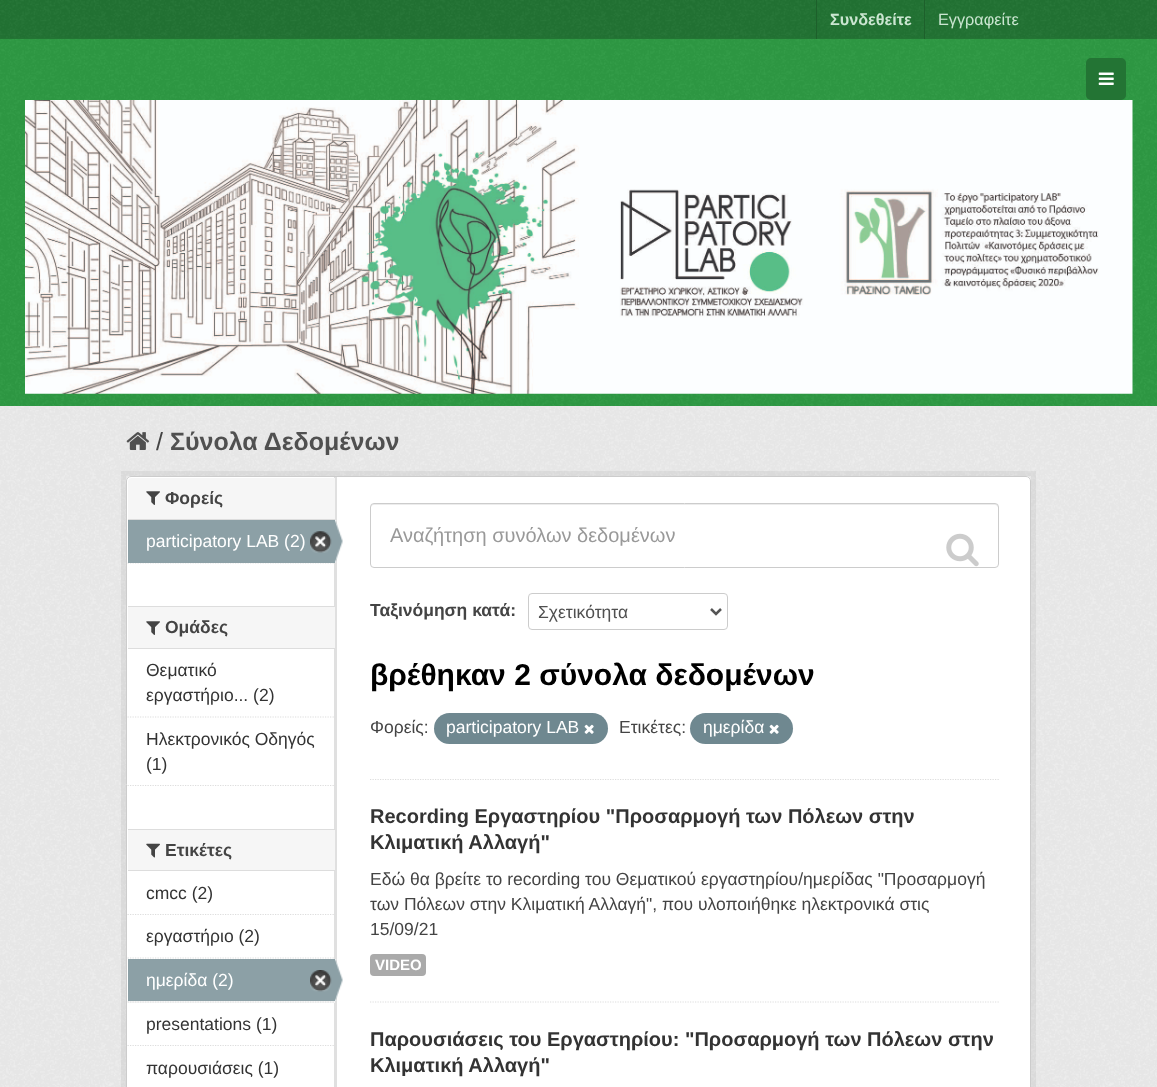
<!DOCTYPE html>
<meta charset="utf-8">
<style>body { margin: 0 } canvas { display: block }</style>
<canvas id="canvas" width="1157" height="1087"></canvas>
<img id="img1" src="images/1.png" hidden>
<img id="img2" src="images/2.png" hidden>
<img id="img3" src="images/3.png" hidden>
<img id="img4" src="images/4.png" hidden>
<img id="img5" src="images/5.png" hidden>
<img id="img6" src="images/6.png" hidden>
<img id="img7" src="images/7.png" hidden>
<img id="img8" src="images/8.png" hidden>
<img id="img9" src="images/9.png" hidden>
<img id="img10" src="images/10.png" hidden>
<img id="img11" src="images/11.png" hidden>
<img id="img12" src="images/12.png" hidden>
<img id="img13" src="images/13.png" hidden>
<img id="img14" src="images/14.png" hidden>
<script>
window.onload = function () {
    const canvas = document.getElementById('canvas');
    const context = canvas.getContext('2d');
    context.miterLimit = 4;
    context.fontKerning = 'normal';

    context.fillStyle = 'rgb(35, 116, 52)';
    context.fillRect(0, 0, 1157, 1087);
    context.drawImage(document.getElementById('img1'), 0, 0, 1157, 38);
    context.fillStyle = 'rgb(29, 96, 43)';
    context.fillRect(816, 0, 1, 39);
    context.fillRect(924, 0, 1, 39);
    context.fillStyle = 'rgb(47, 155, 69)';
    context.fillRect(0, 39, 1157, 367);
    context.drawImage(document.getElementById('img2'), 0, 39, 1157, 367);
    context.fillStyle = 'rgb(35, 116, 52)';
    context.beginPath();
    context.roundRect(1086, 58, 40, 42, 5);
    context.fill();
    context.drawImage(document.getElementById('img3'), 1098, 72, 16, 13);
    context.drawImage(document.getElementById('img4'), 25, 100, 1108, 294);
    context.fillStyle = 'rgb(238, 238, 238)';
    context.fillRect(0, 406, 1157, 681);
    context.drawImage(document.getElementById('img5'), 0, 406, 1157, 681);
    context.drawImage(document.getElementById('img6'), 126, 432, 24, 18);
    context.strokeStyle = 'rgba(0, 0, 0, 0.05)';
    context.lineWidth = 5;
    context.strokeRect(123.5, 473.5, 910, 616);
    context.fillStyle = 'rgb(255, 255, 255)';
    context.beginPath();
    context.roundRect(126, 476, 905, 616, 5);
    context.fill();
    context.fillStyle = 'rgb(224, 224, 224)';
    context.fillRect(334, 476, 3, 611);
    context.beginPath();
    context.roundRect(126.5, 476.5, 904, 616, 4.5);
    context.strokeStyle = 'rgb(204, 204, 204)';
    context.lineWidth = 1;
    context.stroke();
    context.fillStyle = 'rgb(246, 246, 246)';
    context.beginPath();
    context.roundRect(128, 478, 207, 42, [4, 0, 0, 0]);
    context.fill();
    context.fillStyle = 'rgb(221, 221, 221)';
    context.fillRect(128, 519, 207, 1);
    context.drawImage(document.getElementById('img7'), 146, 491, 14, 14);
    context.beginPath();
    context.moveTo(127.5, 563);
    context.lineTo(335, 563);
    context.strokeStyle = 'rgb(221, 221, 221)';
    context.lineWidth = 1.2;
    context.setLineDash([1.25, 1.25]);
    context.stroke();
    context.fillStyle = 'rgb(140, 160, 166)';
    context.fillRect(128, 520, 207, 43);
    context.drawImage(document.getElementById('img8'), 310, 531, 22, 22);
    context.drawImage(document.getElementById('img9'), 335, 520, 8, 43);
    context.fillStyle = 'rgb(246, 246, 246)';
    context.fillRect(128, 607, 207, 41);
    context.fillStyle = 'rgb(221, 221, 221)';
    context.fillRect(128, 606, 207, 1);
    context.fillRect(128, 648, 207, 1);
    context.drawImage(document.getElementById('img7'), 146, 621, 14, 14);
    context.beginPath();
    context.moveTo(127.5, 717);
    context.lineTo(335, 717);
    context.stroke();
    context.beginPath();
    context.moveTo(127.5, 785.5);
    context.lineTo(335, 785.5);
    context.stroke();
    context.fillStyle = 'rgb(246, 246, 246)';
    context.fillRect(128, 830, 207, 40);
    context.fillStyle = 'rgb(221, 221, 221)';
    context.fillRect(128, 829, 207, 1);
    context.fillRect(128, 870, 207, 1);
    context.drawImage(document.getElementById('img10'), 146, 843, 14, 15);
    context.beginPath();
    context.moveTo(127.5, 914.5);
    context.lineTo(335, 914.5);
    context.stroke();
    context.beginPath();
    context.moveTo(127.5, 958);
    context.lineTo(335, 958);
    context.stroke();
    context.fillStyle = 'rgb(246, 246, 246)';
    context.fillRect(128, 1001, 207, 2);
    context.beginPath();
    context.moveTo(127.5, 1002);
    context.lineTo(335, 1002);
    context.stroke();
    context.fillStyle = 'rgb(140, 160, 166)';
    context.fillRect(128, 959, 207, 42);
    context.drawImage(document.getElementById('img11'), 310, 970, 22, 22);
    context.drawImage(document.getElementById('img12'), 335, 959, 8, 42);
    context.beginPath();
    context.moveTo(127.5, 1045.5);
    context.lineTo(335, 1045.5);
    context.stroke();
    context.beginPath();
    context.moveTo(370, 779.5);
    context.lineTo(999, 779.5);
    context.stroke();
    context.fillStyle = 'rgb(236, 236, 236)';
    context.beginPath();
    context.moveTo(374, 505);
    context.lineTo(995, 505);
    context.bezierCurveTo(996, 505, 998, 506, 998, 508);
    context.lineTo(998, 506);
    context.bezierCurveTo(998, 505, 997, 504, 996, 504);
    context.lineTo(374, 504);
    context.bezierCurveTo(372, 504, 371, 505, 371, 506);
    context.lineTo(371, 508);
    context.bezierCurveTo(371, 506, 372, 505, 374, 505);
    context.closePath();
    context.fill();
    context.beginPath();
    context.roundRect(370.5, 503.5, 628, 64, 3.5);
    context.strokeStyle = 'rgb(204, 204, 204)';
    context.lineWidth = 1;
    context.setLineDash([]);
    context.stroke();
    context.drawImage(document.getElementById('img13'), 946, 533, 33, 34);
    context.beginPath();
    context.roundRect(528.5, 593.5, 199, 36, 3.5);
    context.stroke();
    context.beginPath();
    context.moveTo(711, 609);
    context.lineTo(716, 614);
    context.lineTo(721, 609);
    context.strokeStyle = 'rgb(85, 85, 85)';
    context.lineWidth = 2.5;
    context.stroke();
    context.fillStyle = 'rgb(111, 136, 144)';
    context.beginPath();
    context.roundRect(434, 713, 174, 31, 15.5);
    context.fill();
    context.drawImage(document.getElementById('img14'), 584, 724, 10, 10);
    context.beginPath();
    context.roundRect(690, 713, 103, 31, 15.5);
    context.fill();
    context.drawImage(document.getElementById('img14'), 769, 724, 10, 10);
    context.beginPath();
    context.moveTo(370, 1002);
    context.lineTo(999, 1002);
    context.strokeStyle = 'rgb(221, 221, 221)';
    context.lineWidth = 1.2;
    context.setLineDash([1.25, 1.25]);
    context.stroke();
    context.fillStyle = 'rgb(170, 170, 170)';
    context.beginPath();
    context.roundRect(370, 954, 56, 22, 4);
    context.fill();
    context.font = 'bold 16.25px Liberation Sans';
    context.fillStyle = 'rgb(203, 230, 209)';
    context.fillText('Συνδεθείτε', 830, 25);
    context.font = '16.25px Liberation Sans';
    context.fillText('Εγγραφείτε', 938, 25);
    context.font = '25px Liberation Sans';
    context.fillStyle = 'rgb(68, 68, 68)';
    context.fillText('/', 156, 450);
    context.font = 'bold 25px Liberation Sans';
    context.fillStyle = 'rgb(80, 80, 80)';
    context.fillText('Σύνολα Δεδομένων', 170, 450);
    context.font = 'bold 17.5px Liberation Sans';
    context.fillStyle = 'rgb(68, 68, 68)';
    context.fillText('Φορείς', 165, 504);
    context.font = '17.5px Liberation Sans';
    context.fillStyle = 'rgb(255, 255, 255)';
    context.fillText('participatory LAB (2)', 146, 547);
    context.font = 'bold 17.5px Liberation Sans';
    context.fillStyle = 'rgb(68, 68, 68)';
    context.fillText('Ομάδες', 165, 633);
    context.font = '17.5px Liberation Sans';
    context.fillStyle = 'rgb(51, 51, 51)';
    context.fillText('Θεματικό', 146, 676);
    context.fillText('εργαστήριο... (2)', 146, 701);
    context.fillText('Hλεκτρονικός Οδηγός', 146, 745);
    context.fillText('(1)', 146, 770);
    context.font = 'bold 17.5px Liberation Sans';
    context.fillStyle = 'rgb(68, 68, 68)';
    context.fillText('Ετικέτες', 165, 856);
    context.font = '17.5px Liberation Sans';
    context.fillStyle = 'rgb(51, 51, 51)';
    context.fillText('cmcc (2)', 146, 899);
    context.fillText('εργαστήριο (2)', 146, 942);
    context.fillStyle = 'rgb(255, 255, 255)';
    context.fillText('ημερίδα (2)', 146, 986);
    context.fillStyle = 'rgb(51, 51, 51)';
    context.fillText('presentations (1)', 146, 1030);
    context.fillText('παρουσιάσεις (1)', 146, 1074);
    context.save();
    context.beginPath();
    context.rect(390, 524, 589, 22);
    context.clip();
    context.font = '20px Liberation Sans';
    context.fillStyle = 'rgb(153, 153, 153)';
    context.fillText('Αναζήτηση συνόλων δεδομένων', 390, 542);
    context.restore();
    context.font = 'bold 17.5px Liberation Sans';
    context.fillStyle = 'rgb(68, 68, 68)';
    context.fillText('Ταξινόμηση κατά:', 370, 616);
    context.font = '17.5px Liberation Sans';
    context.fillStyle = 'rgb(80, 80, 80)';
    context.fillText('Σχετικότητα', 538, 618);
    context.font = 'bold 30px Liberation Sans';
    context.fillStyle = 'rgb(0, 0, 0)';
    context.fillText('βρέθηκαν 2 σύνολα δεδομένων', 370, 685);
    context.font = '17.5px Liberation Sans';
    context.fillStyle = 'rgb(68, 68, 68)';
    context.fillText('Φορείς:', 370, 733);
    context.fillStyle = 'rgb(255, 255, 255)';
    context.fillText('participatory LAB', 446, 733);
    context.fillStyle = 'rgb(68, 68, 68)';
    context.fillText('Ετικέτες:', 619, 733);
    context.fillStyle = 'rgb(255, 255, 255)';
    context.fillText('ημερίδα', 703, 733);
    context.font = 'bold 20px Liberation Sans';
    context.fillStyle = 'rgb(51, 51, 51)';
    context.fillText('Recording Eργαστηρίου "Προσαρμογή των Πόλεων στην', 370, 823);
    context.fillText('Κλιματική Αλλαγή"', 370, 849);
    context.font = '17.5px Liberation Sans';
    context.fillStyle = 'rgb(68, 68, 68)';
    context.fillText('Εδώ θα βρείτε το recording του Θεματικού εργαστηρίου/ημερίδας "Προσαρμογή', 370, 885);
    context.fillText('των Πόλεων στην Κλιματική Αλλαγή", που υλοποιήθηκε ηλεκτρονικά στις', 370, 910);
    context.fillText('15/09/21', 370, 935);
    context.font = 'bold 15px Liberation Sans';
    context.fillStyle = 'rgb(255, 255, 255)';
    context.fillText('VIDEO', 375, 970);
    context.font = 'bold 20px Liberation Sans';
    context.fillStyle = 'rgb(51, 51, 51)';
    context.fillText('Παρουσιάσεις του Εργαστηρίου: "Προσαρμογή των Πόλεων στην', 370, 1046);
    context.fillText('Κλιματική Αλλαγή"', 370, 1072);
};
</script>
